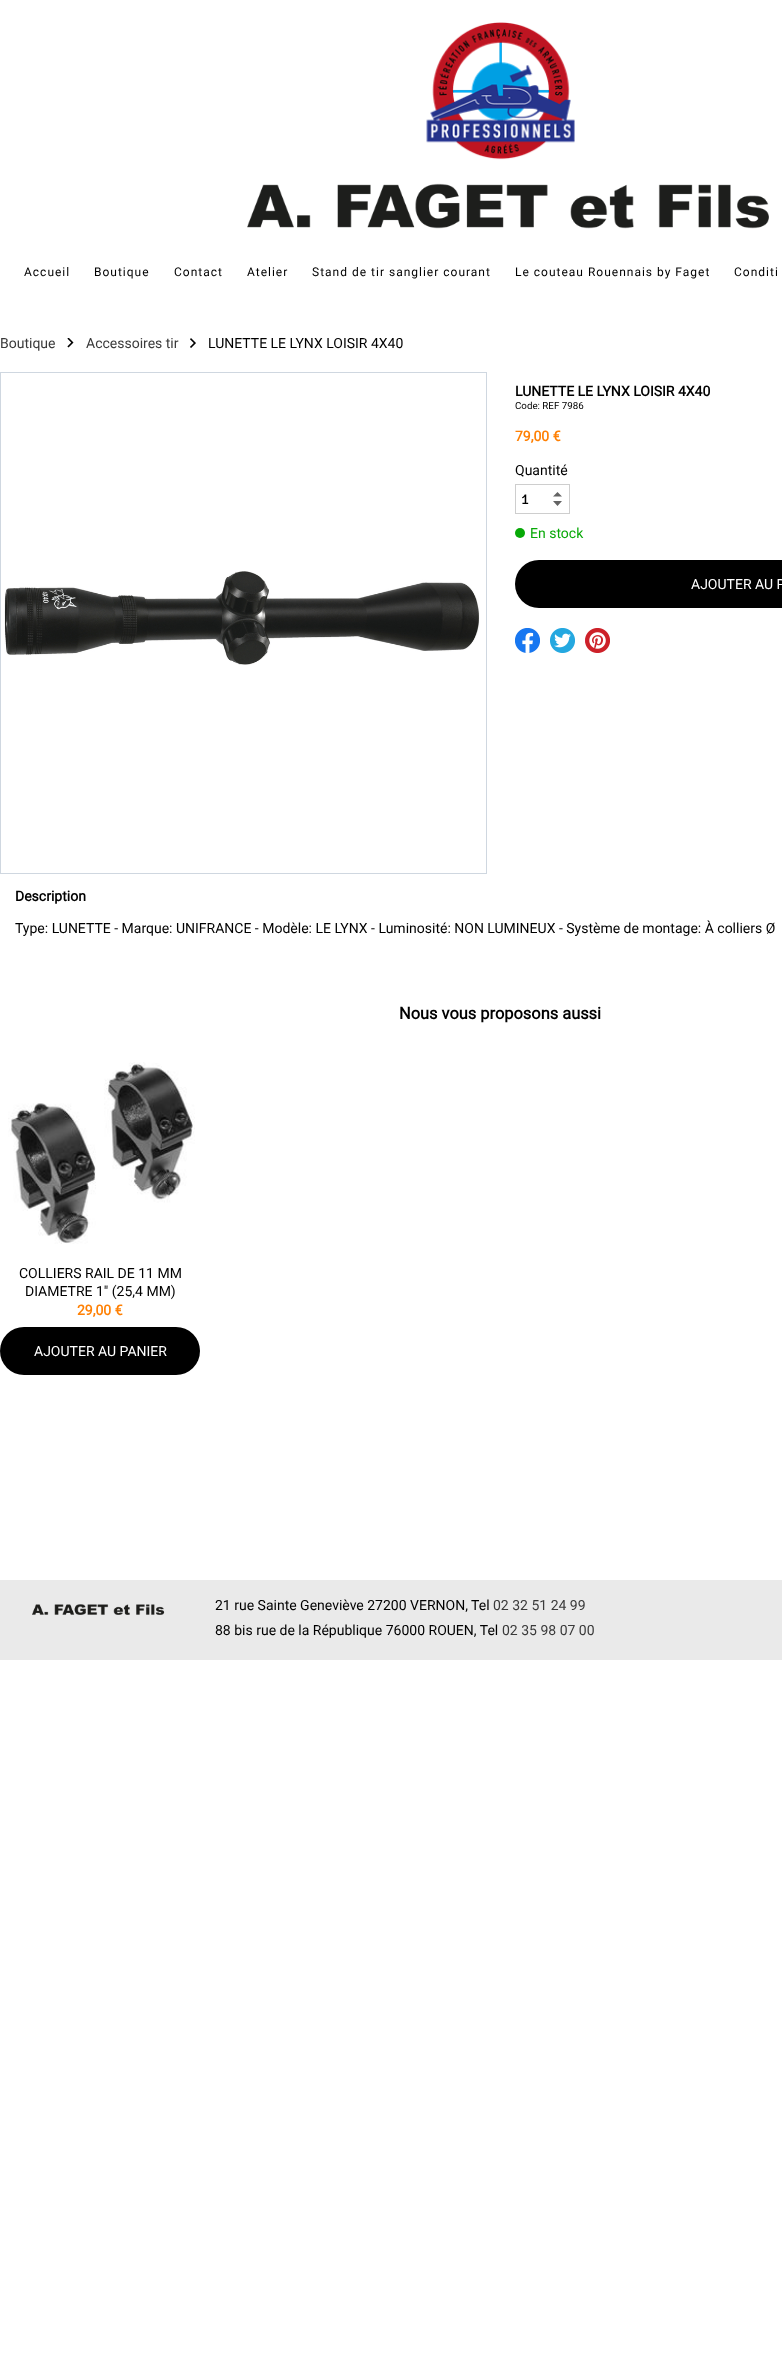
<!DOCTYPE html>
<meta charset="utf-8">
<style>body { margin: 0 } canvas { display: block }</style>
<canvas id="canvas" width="782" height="2379"></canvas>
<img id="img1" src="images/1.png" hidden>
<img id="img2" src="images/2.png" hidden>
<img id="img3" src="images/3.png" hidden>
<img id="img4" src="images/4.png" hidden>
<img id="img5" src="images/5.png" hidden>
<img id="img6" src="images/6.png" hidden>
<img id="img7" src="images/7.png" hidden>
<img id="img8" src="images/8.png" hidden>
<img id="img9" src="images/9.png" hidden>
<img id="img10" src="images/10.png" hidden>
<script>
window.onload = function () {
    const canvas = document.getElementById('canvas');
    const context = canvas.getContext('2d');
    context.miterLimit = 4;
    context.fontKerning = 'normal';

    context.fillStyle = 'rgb(255, 255, 255)';
    context.fillRect(0, 0, 782, 2379);
    context.drawImage(document.getElementById('img1'), 426, 22, 149, 138);
    context.drawImage(document.getElementById('img2'), 247, 183, 522, 46);
    context.drawImage(document.getElementById('img3'), 67, 338, 7, 10);
    context.drawImage(document.getElementById('img4'), 190, 338, 6, 10);
    context.strokeStyle = 'rgb(207, 215, 224)';
    context.strokeRect(0.5, 372.5, 486, 501);
    context.drawImage(document.getElementById('img5'), 4, 571, 476, 94);
    context.strokeStyle = 'rgb(206, 206, 206)';
    context.strokeRect(515.5, 484.5, 54, 29);
    context.fillStyle = 'rgb(100, 100, 100)';
    context.beginPath();
    context.moveTo(562, 496.5);
    context.lineTo(557.5, 492);
    context.lineTo(553, 496.5);
    context.closePath();
    context.moveTo(553, 501);
    context.lineTo(557.5, 506);
    context.lineTo(562, 501);
    context.closePath();
    context.fill();
    context.fillStyle = 'rgb(7, 169, 7)';
    context.beginPath();
    context.arc(520, 533, 5, 0, 2 * Math.PI);
    context.fill();
    context.fillStyle = 'rgb(0, 0, 0)';
    context.beginPath();
    context.roundRect(515, 560, 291, 48, 24);
    context.fill();
    context.drawImage(document.getElementById('img6'), 515, 628, 25, 25);
    context.drawImage(document.getElementById('img7'), 550, 628, 25, 25);
    context.drawImage(document.getElementById('img8'), 585, 628, 25, 25);
    context.drawImage(document.getElementById('img9'), 8, 1062, 187, 182);
    context.beginPath();
    context.roundRect(0, 1327, 200, 48, 24);
    context.fill();
    context.fillStyle = 'rgb(234, 234, 234)';
    context.fillRect(0, 1580, 782, 80);
    context.drawImage(document.getElementById('img10'), 32, 1604, 133, 11);
    context.letterSpacing = '1px';
    context.font = '12px Roboto';
    context.fillStyle = 'rgb(0, 0, 0)';
    context.fillText('Accueil', 24, 276);
    context.fillText('Boutique', 94, 276);
    context.fillText('Contact', 174, 276);
    context.fillText('Atelier', 247, 276);
    context.fillText('Stand de tir sanglier courant', 312, 276);
    context.fillText('Le couteau Rouennais by Faget', 515, 276);
    context.fillText('Conditi', 734, 276);
    context.letterSpacing = '0px';
    context.font = '14px Roboto';
    context.fillStyle = 'rgb(58, 58, 58)';
    context.fillText('Boutique', 0, 348);
    context.fillText('Accessoires tir', 86, 348);
    context.fillStyle = 'rgb(0, 0, 0)';
    context.fillText('LUNETTE LE LYNX LOISIR 4X40', 208, 348);
    context.font = 'bold 14px Roboto';
    context.fillText('LUNETTE LE LYNX LOISIR 4X40', 515, 396);
    context.font = '9.75px Roboto';
    context.fillText('Code: REF 7986', 515, 409);
    context.font = 'bold 14px Roboto';
    context.fillStyle = 'rgb(255, 128, 4)';
    context.fillText('79,00 €', 515, 441);
    context.font = '14px Roboto';
    context.fillStyle = 'rgb(0, 0, 0)';
    context.fillText('Quantité', 515, 475);
    context.font = '300 15px Signika';
    context.fillText('1', 521, 504);
    context.font = '14px Roboto';
    context.fillStyle = 'rgb(7, 169, 7)';
    context.fillText('En stock', 530, 538);
    context.fillStyle = 'rgb(255, 255, 255)';
    context.fillText('AJOUTER AU P', 691, 589);
    context.font = 'bold 14px Roboto';
    context.fillStyle = 'rgb(0, 0, 0)';
    context.fillText('Description', 15, 901);
    context.font = '14px Roboto';
    context.fillText('Type: LUNETTE - Marque: UNIFRANCE - Modèle: LE LYNX - Luminosité: NON LUMINEUX - Système de montage: À colliers Ø', 15, 933);
    context.font = 'bold 16.4px Roboto';
    context.fillText('Nous vous proposons aussi', 399, 1019);
    context.font = '14px Roboto';
    context.fillText('COLLIERS RAIL DE 11 MM', 19, 1278);
    context.fillText('DIAMETRE 1" (25,4 MM)', 25, 1296);
    context.font = 'bold 14px Roboto';
    context.fillStyle = 'rgb(255, 128, 4)';
    context.fillText('29,00 €', 77, 1315);
    context.font = '14px Roboto';
    context.fillStyle = 'rgb(255, 255, 255)';
    context.fillText('AJOUTER AU PANIER', 34, 1356);
    context.fillStyle = 'rgb(0, 0, 0)';
    context.fillText('21 rue Sainte Geneviève 27200 VERNON, Tel', 215, 1610);
    context.fillStyle = 'rgb(58, 58, 58)';
    context.fillText('02 32 51 24 99', 493, 1610);
    context.fillStyle = 'rgb(0, 0, 0)';
    context.fillText('88 bis rue de la République 76000 ROUEN, Tel', 215, 1635);
    context.fillStyle = 'rgb(58, 58, 58)';
    context.fillText('02 35 98 07 00', 502, 1635);
};
</script>
